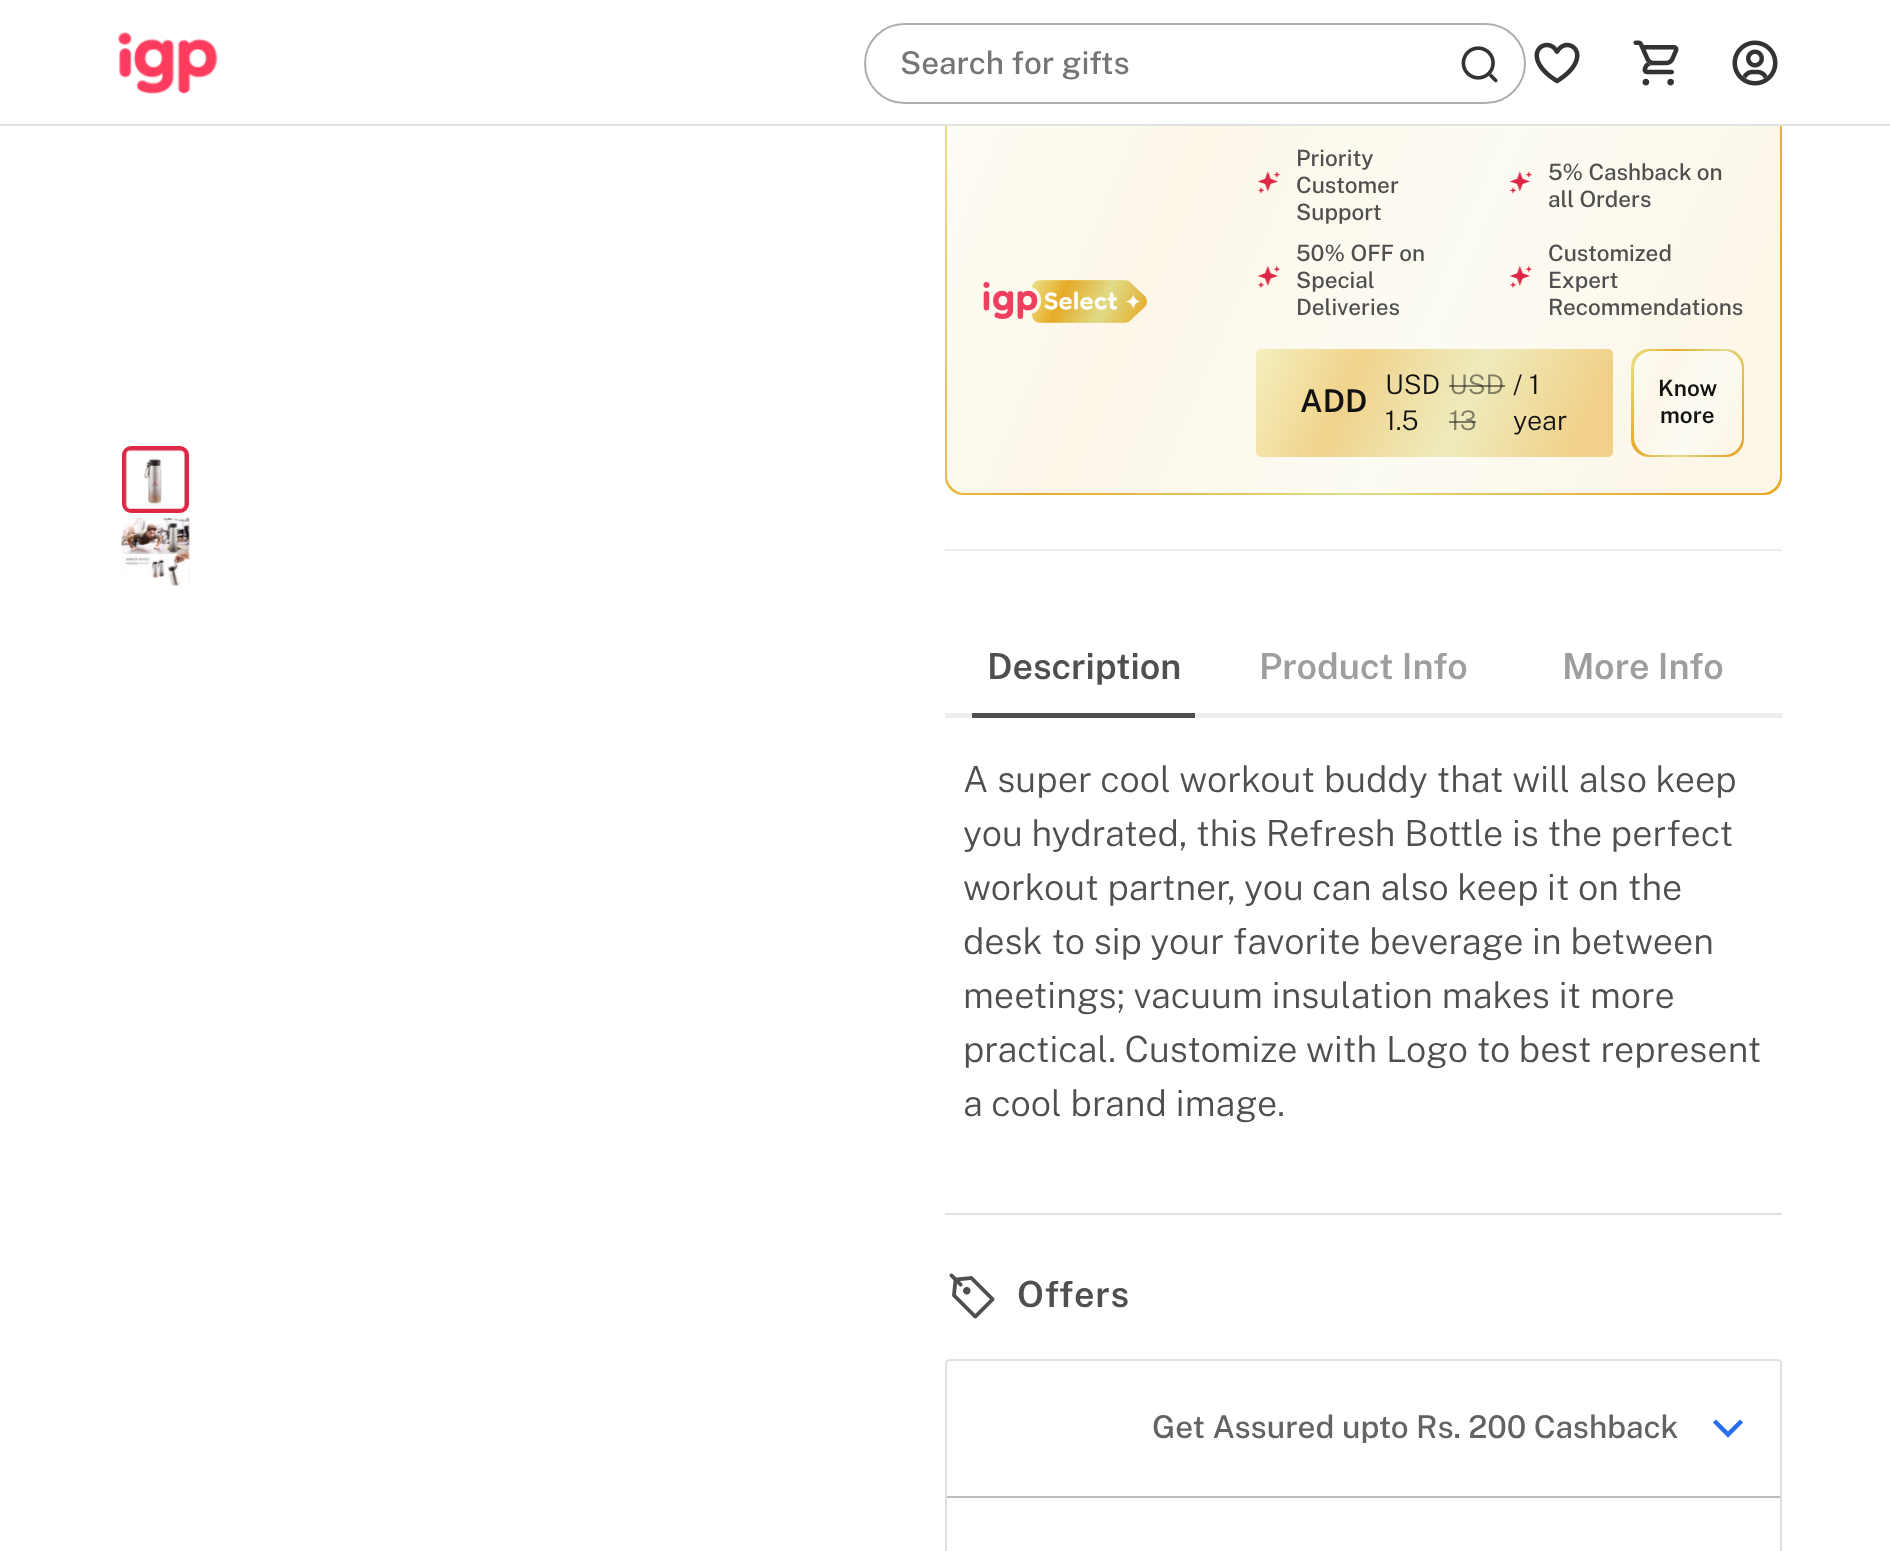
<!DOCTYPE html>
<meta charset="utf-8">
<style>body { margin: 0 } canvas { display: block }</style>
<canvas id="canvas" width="1890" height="1551"></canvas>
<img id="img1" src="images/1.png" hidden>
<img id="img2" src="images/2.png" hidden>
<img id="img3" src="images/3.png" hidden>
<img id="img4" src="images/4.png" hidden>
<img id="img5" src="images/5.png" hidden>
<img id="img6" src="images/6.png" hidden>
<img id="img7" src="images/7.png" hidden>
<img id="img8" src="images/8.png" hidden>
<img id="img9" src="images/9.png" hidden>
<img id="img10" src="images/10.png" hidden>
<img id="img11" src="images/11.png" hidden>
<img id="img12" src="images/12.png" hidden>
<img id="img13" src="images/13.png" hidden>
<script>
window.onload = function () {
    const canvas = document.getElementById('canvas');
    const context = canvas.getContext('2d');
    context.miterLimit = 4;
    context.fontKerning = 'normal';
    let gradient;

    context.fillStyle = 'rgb(255, 255, 255)';
    context.fillRect(0, 0, 1890, 1551);
    gradient = context.createLinearGradient(926, 80, 1801, 451);
    gradient.addColorStop(0, 'rgb(237, 230, 143)');
    gradient.addColorStop(0.27, 'rgb(229, 171, 39)');
    gradient.addColorStop(0.58, 'rgb(225, 219, 136)');
    gradient.addColorStop(0.9, 'rgb(230, 170, 39)');
    context.fillStyle = gradient;
    context.beginPath();
    context.roundRect(945, 36, 837, 459, 18);
    context.fill();
    context.fillStyle = 'rgb(255, 255, 255)';
    context.beginPath();
    context.roundRect(947, 110, 833, 383, [0, 0, 18, 18]);
    context.fill();
    gradient = context.createLinearGradient(942, 123, 1785, 480);
    gradient.addColorStop(0, 'rgba(237, 230, 143, 0.1)');
    gradient.addColorStop(0.27, 'rgba(229, 171, 39, 0.1)');
    gradient.addColorStop(0.58, 'rgba(225, 219, 136, 0.1)');
    gradient.addColorStop(0.9, 'rgba(230, 170, 39, 0.1)');
    context.fillStyle = gradient;
    context.beginPath();
    context.roundRect(947, 110, 833, 383, [0, 0, 18, 18]);
    context.fill();
    context.fillStyle = 'rgb(255, 255, 255)';
    context.fillRect(945, 36, 837, 88);
    context.fillStyle = 'rgb(226, 226, 226)';
    context.fillRect(0, 124, 1890, 2);
    context.drawImage(document.getElementById('img1'), 118, 32, 100, 62);
    context.beginPath();
    context.roundRect(865, 24, 660, 79, 39.5);
    context.strokeStyle = 'rgb(175, 175, 175)';
    context.lineWidth = 2;
    context.stroke();
    context.drawImage(document.getElementById('img2'), 1461, 46, 37, 37);
    context.drawImage(document.getElementById('img3'), 1534, 42, 46, 42);
    context.drawImage(document.getElementById('img4'), 1633, 40, 46, 46);
    context.drawImage(document.getElementById('img5'), 1732, 40, 46, 46);
    context.beginPath();
    context.roundRect(124.5, 448.5, 62, 62, 6.5);
    context.strokeStyle = 'rgb(221, 39, 69)';
    context.lineWidth = 5;
    context.stroke();
    context.drawImage(document.getElementById('img6'), 125, 449, 60, 60);
    context.drawImage(document.getElementById('img7'), 121, 517, 69, 69);
    context.fillStyle = 'rgb(238, 238, 238)';
    context.fillRect(945, 549, 837, 2);
    context.drawImage(document.getElementById('img8'), 983, 280, 164, 43);
    context.drawImage(document.getElementById('img9'), 1257, 171, 24, 23);
    context.drawImage(document.getElementById('img10'), 1509, 171, 24, 23);
    context.drawImage(document.getElementById('img11'), 1257, 266, 24, 22);
    context.drawImage(document.getElementById('img12'), 1509, 266, 24, 22);
    gradient = context.createLinearGradient(1263, 330, 1605, 475);
    gradient.addColorStop(0, 'rgba(237, 230, 143, 0.5)');
    gradient.addColorStop(0.27, 'rgba(229, 171, 39, 0.5)');
    gradient.addColorStop(0.58, 'rgba(225, 219, 136, 0.5)');
    gradient.addColorStop(0.9, 'rgba(230, 170, 39, 0.5)');
    context.fillStyle = gradient;
    context.beginPath();
    context.roundRect(1256, 349, 357, 108, 5);
    context.fill();
    gradient = context.createLinearGradient(1620, 374, 1755, 431);
    gradient.addColorStop(0, 'rgb(237, 230, 143)');
    gradient.addColorStop(0.27, 'rgb(229, 171, 39)');
    gradient.addColorStop(0.58, 'rgb(225, 219, 136)');
    gradient.addColorStop(0.9, 'rgb(230, 170, 39)');
    context.fillStyle = gradient;
    context.beginPath();
    context.roundRect(1631, 349, 113, 108, 18);
    context.fill();
    context.fillStyle = 'rgb(255, 255, 255)';
    context.beginPath();
    context.roundRect(1634, 351, 108, 104, 18);
    context.fill();
    gradient = context.createLinearGradient(1623, 375, 1752, 430);
    gradient.addColorStop(0, 'rgba(237, 230, 143, 0.1)');
    gradient.addColorStop(0.27, 'rgba(229, 171, 39, 0.1)');
    gradient.addColorStop(0.58, 'rgba(225, 219, 136, 0.1)');
    gradient.addColorStop(0.9, 'rgba(230, 170, 39, 0.1)');
    context.fillStyle = gradient;
    context.beginPath();
    context.roundRect(1634, 351, 108, 104, 18);
    context.fill();
    context.fillStyle = 'rgb(224, 224, 224)';
    context.fillRect(945, 1213, 837, 2);
    context.fillStyle = 'rgb(238, 238, 238)';
    context.fillRect(945, 713, 837, 5);
    context.fillStyle = 'rgb(79, 79, 79)';
    context.fillRect(972, 713, 223, 5);
    context.drawImage(document.getElementById('img13'), 949, 1273, 46, 46);
    context.beginPath();
    context.roundRect(946, 1360, 835, 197, 4);
    context.strokeStyle = 'rgb(224, 224, 224)';
    context.lineWidth = 2;
    context.stroke();
    context.fillStyle = 'rgb(189, 189, 189)';
    context.fillRect(947, 1496, 833, 2);
    context.beginPath();
    context.moveTo(1714.5, 1421);
    context.lineTo(1728, 1434.5);
    context.lineTo(1741.5, 1421);
    context.strokeStyle = 'rgb(39, 110, 241)';
    context.lineWidth = 4.5;
    context.stroke();
    context.font = '500 31.5px Public Sans';
    context.fillStyle = 'rgb(117, 117, 117)';
    context.fillText('Search for gifts', 900, 74);
    context.font = '500 22.5px Public Sans';
    context.fillStyle = 'rgb(79, 79, 79)';
    context.fillText('Priority', 1296, 166);
    context.fillText('Customer', 1296, 193);
    context.fillText('Support', 1296, 220);
    context.fillText('5% Cashback on', 1548, 180);
    context.fillText('all Orders', 1548, 207);
    context.fillText('50% OFF on', 1296, 261);
    context.fillText('Special', 1296, 288);
    context.fillText('Deliveries', 1296, 315);
    context.fillText('Customized', 1548, 261);
    context.fillText('Expert', 1548, 288);
    context.fillText('Recommendations', 1548, 315);
    context.font = '600 31.5px Public Sans';
    context.fillStyle = 'rgb(18, 18, 18)';
    context.fillText('ADD', 1300, 412);
    context.font = '300 27px Public Sans';
    context.fillText('USD', 1385, 394);
    context.fillText('1.5', 1385, 430);
    context.fillStyle = 'rgb(128, 125, 100)';
    context.fillText('USD', 1449, 394);
    context.fillStyle = 'rgba(18, 18, 18, 0.5)';
    context.fillRect(1449, 385, 56, 2);
    context.fillStyle = 'rgb(128, 125, 100)';
    context.fillText('13', 1449, 430);
    context.fillStyle = 'rgba(18, 18, 18, 0.5)';
    context.fillRect(1449, 421, 27, 2);
    context.fillStyle = 'rgb(18, 18, 18)';
    context.fillText('/ 1', 1513, 394);
    context.fillText('year', 1513, 430);
    context.font = '600 22.5px Public Sans';
    context.fillText('Know', 1658, 396);
    context.fillText('more', 1660, 423);
    context.font = '600 36px Public Sans';
    context.fillStyle = 'rgb(79, 79, 79)';
    context.fillText('Description', 987, 679);
    context.fillStyle = 'rgb(158, 158, 158)';
    context.fillText('Product Info', 1259, 679);
    context.fillText('More Info', 1562, 679);
    context.font = '300 36px Public Sans';
    context.fillStyle = 'rgb(79, 79, 79)';
    context.fillText('A super cool workout buddy that will also keep', 963, 792);
    context.fillText('you hydrated, this Refresh Bottle is the perfect', 963, 846);
    context.fillText('workout partner, you can also keep it on the', 963, 900);
    context.fillText('desk to sip your favorite beverage in between', 963, 954);
    context.fillText('meetings; vacuum insulation makes it more', 963, 1008);
    context.fillText('practical. Customize with Logo to best represent', 963, 1062);
    context.fillText('a cool brand image.', 963, 1116);
    context.letterSpacing = '0.75px';
    context.font = '600 36px Public Sans';
    context.fillText('Offers', 1017, 1307);
    context.letterSpacing = '0px';
    context.font = '500 31.5px Public Sans';
    context.fillStyle = 'rgb(99, 99, 99)';
    context.fillText('Get Assured upto Rs. 200 Cashback', 1152, 1438);
};
</script>
